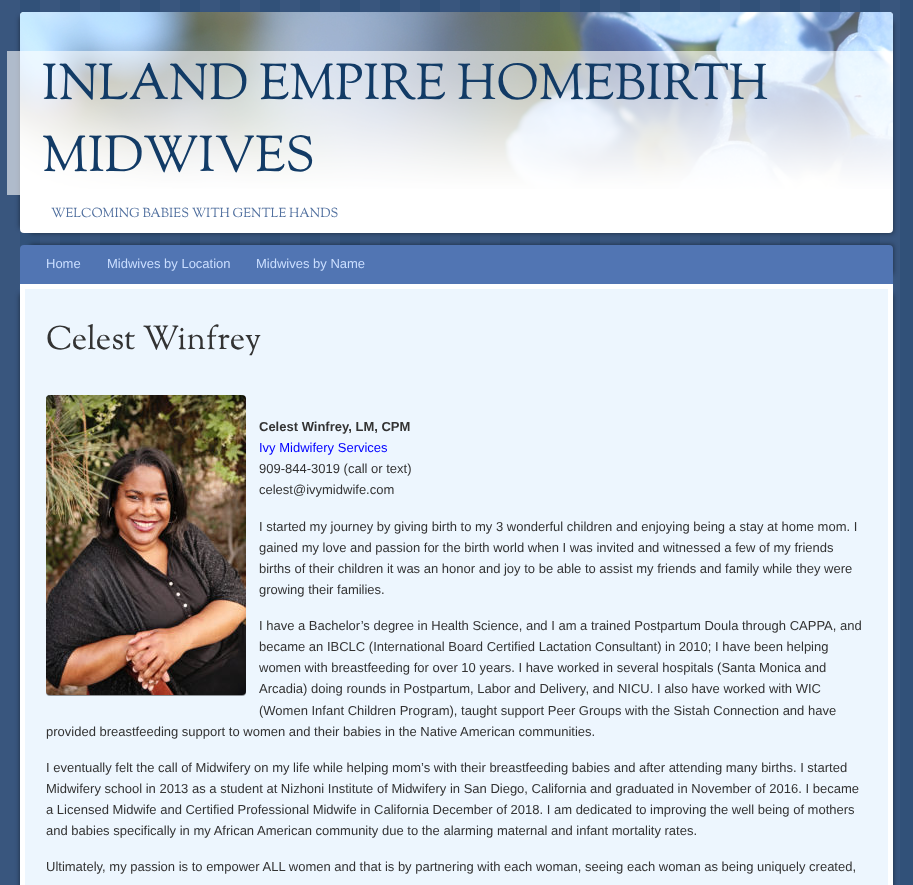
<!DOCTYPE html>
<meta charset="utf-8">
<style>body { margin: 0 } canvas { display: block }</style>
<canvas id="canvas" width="913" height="885"></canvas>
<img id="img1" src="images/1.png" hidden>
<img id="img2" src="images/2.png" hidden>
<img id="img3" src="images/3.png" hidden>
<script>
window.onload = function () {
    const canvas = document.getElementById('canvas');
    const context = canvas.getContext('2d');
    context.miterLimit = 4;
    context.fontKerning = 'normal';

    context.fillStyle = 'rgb(255, 255, 255)';
    context.fillRect(0, 0, 913, 885);
    context.drawImage(document.getElementById('img1'), 0, 0, 913, 885);
    context.fillStyle = 'rgba(0, 0, 0, 0.5)';
    context.filter = 'blur(2.5px)';
    context.beginPath();
    context.rect(20, 17, 863, 211);
    context.fill();
    context.filter = 'none';
    context.filter = 'blur(2.5px)';
    context.beginPath();
    context.rect(30, 22, 863, 211);
    context.fill();
    context.filter = 'none';
    context.fillStyle = 'rgb(255, 255, 255)';
    context.beginPath();
    context.roundRect(20, 12, 873, 221, 4);
    context.fill();
    context.drawImage(document.getElementById('img2'), 20, 12, 873, 177);
    context.fillStyle = 'rgba(255, 255, 255, 0.6)';
    context.fillRect(7, 51, 886, 144);
    context.fillStyle = 'rgba(0, 0, 0, 0.5)';
    context.filter = 'blur(2.5px)';
    context.beginPath();
    context.rect(30, 245, 863, 29);
    context.fill();
    context.filter = 'none';
    context.fillStyle = 'rgb(81, 117, 179)';
    context.beginPath();
    context.roundRect(20, 245, 873, 39, [4, 4, 0, 0]);
    context.fill();
    context.fillStyle = 'rgba(0, 0, 0, 0.5)';
    context.filter = 'blur(2.5px)';
    context.beginPath();
    context.rect(20, 294, 863, 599);
    context.fill();
    context.filter = 'none';
    context.filter = 'blur(2.5px)';
    context.beginPath();
    context.rect(30, 294, 863, 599);
    context.fill();
    context.filter = 'none';
    context.fillStyle = 'rgb(237, 246, 254)';
    context.beginPath();
    context.rect(22.5, 286.5, 868, 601);
    context.fill();
    context.strokeStyle = 'rgb(255, 255, 255)';
    context.lineWidth = 5;
    context.stroke();
    context.fillStyle = 'rgba(0, 0, 0, 0.4)';
    context.filter = 'blur(0.5px)';
    context.beginPath();
    context.roundRect(46, 396, 200, 300, 4);
    context.fill();
    context.filter = 'none';
    context.drawImage(document.getElementById('img3'), 46, 395, 200, 300);
    context.font = '50px Sorts Mill Goudy';
    context.fillStyle = 'rgb(18, 59, 102)';
    context.fillText('INLAND EMPIRE HOMEBIRTH', 42, 99);
    context.fillText('MIDWIVES', 42, 171);
    context.font = '13px Sorts Mill Goudy';
    context.fillStyle = 'rgb(80, 111, 158)';
    context.fillText('WELCOMING BABIES WITH GENTLE HANDS', 51, 217);
    context.font = '13px Liberation Sans';
    context.fillStyle = 'rgb(202, 222, 255)';
    context.fillText('Home', 46, 268);
    context.fillText('Midwives by Location', 107, 268);
    context.fillText('Midwives by Name', 256, 268);
    context.font = '33px Sorts Mill Goudy';
    context.fillStyle = 'rgb(51, 51, 51)';
    context.fillText('Celest Winfrey', 46, 349);
    context.font = 'bold 13px Liberation Sans';
    context.fillText('Celest Winfrey, LM, CPM', 259, 431);
    context.font = '13px Liberation Sans';
    context.fillStyle = 'rgb(0, 0, 255)';
    context.fillText('Ivy Midwifery Services', 259, 452);
    context.fillStyle = 'rgb(51, 51, 51)';
    context.fillText('909-844-3019 (call or text)', 259, 473);
    context.fillText('celest@ivymidwife.com', 259, 494);
    context.fillText('I started my journey by giving birth to my 3 wonderful children and enjoying being a stay at home mom. I', 259, 531);
    context.fillText('gained my love and passion for the birth world when I was invited and witnessed a few of my friends', 259, 552);
    context.fillText('births of their children it was an honor and joy to be able to assist my friends and family while they were', 259, 573);
    context.fillText('growing their families.', 259, 594);
    context.fillText('I have a Bachelor’s degree in Health Science, and I am a trained Postpartum Doula through CAPPA, and', 259, 630);
    context.fillText('became an IBCLC (International Board Certified Lactation Consultant) in 2010; I have been helping', 259, 651);
    context.fillText('women with breastfeeding for over 10 years. I have worked in several hospitals (Santa Monica and', 259, 672);
    context.fillText('Arcadia) doing rounds in Postpartum, Labor and Delivery, and NICU. I also have worked with WIC', 259, 693);
    context.fillText('(Women Infant Children Program), taught support Peer Groups with the Sistah Connection and have', 259, 715);
    context.fillText('provided breastfeeding support to women and their babies in the Native American communities.', 46, 736);
    context.fillText('I eventually felt the call of Midwifery on my life while helping mom’s with their breastfeeding babies and after attending many births. I started', 46, 772);
    context.fillText('Midwifery school in 2013 as a student at Nizhoni Institute of Midwifery in San Diego, California and graduated in November of 2016. I became', 46, 793);
    context.fillText('a Licensed Midwife and Certified Professional Midwife in California December of 2018. I am dedicated to improving the well being of mothers', 46, 814);
    context.fillText('and babies specifically in my African American community due to the alarming maternal and infant mortality rates.', 46, 835);
    context.fillText('Ultimately, my passion is to empower ALL women and that is by partnering with each woman, seeing each woman as being uniquely created,', 46, 871);
};
</script>
